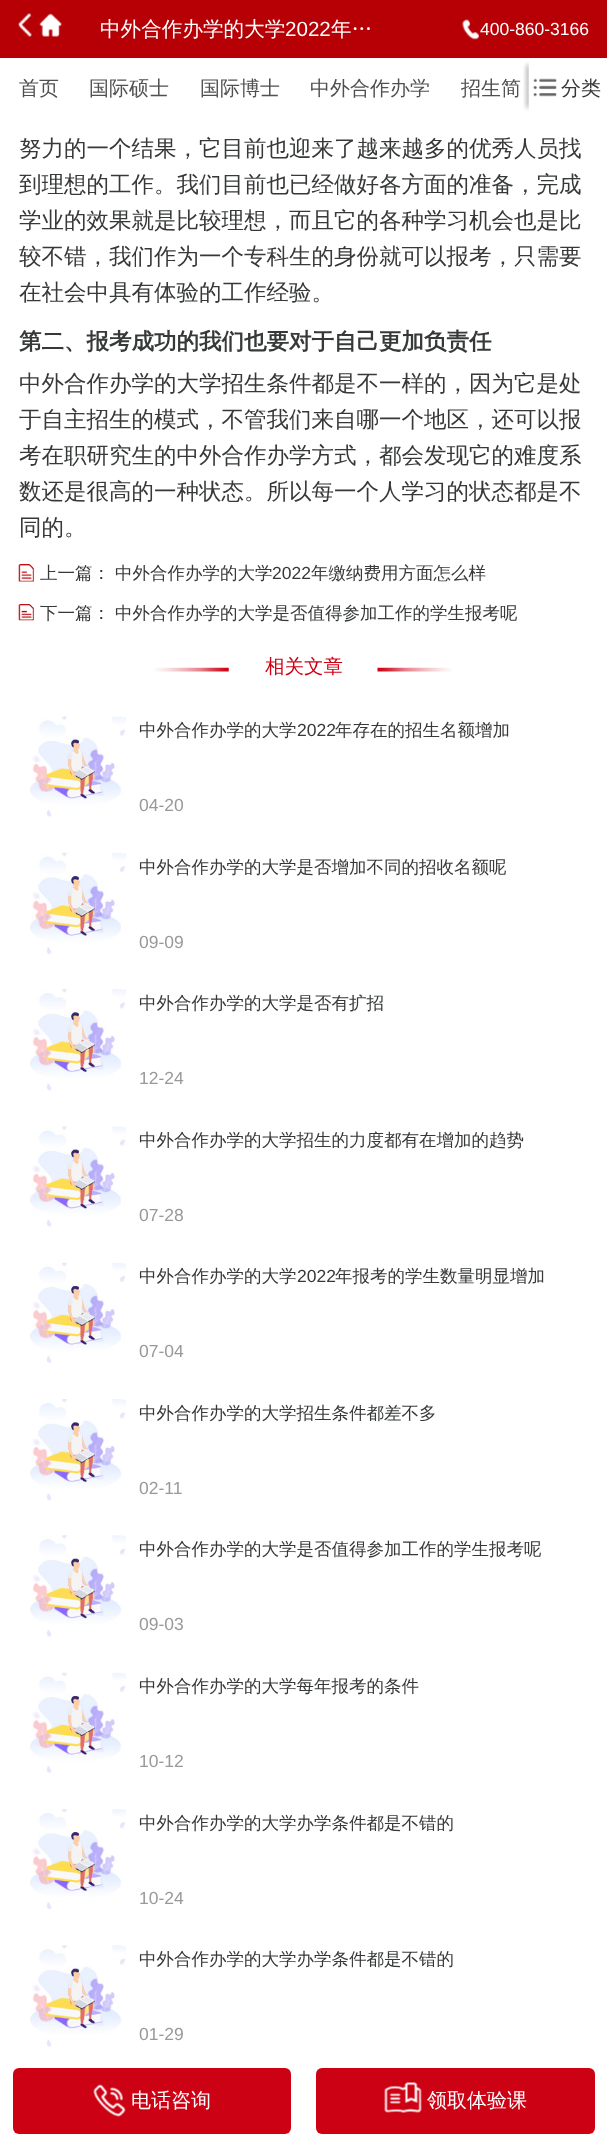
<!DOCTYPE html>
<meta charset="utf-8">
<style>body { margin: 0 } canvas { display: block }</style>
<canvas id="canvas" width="607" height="2139"></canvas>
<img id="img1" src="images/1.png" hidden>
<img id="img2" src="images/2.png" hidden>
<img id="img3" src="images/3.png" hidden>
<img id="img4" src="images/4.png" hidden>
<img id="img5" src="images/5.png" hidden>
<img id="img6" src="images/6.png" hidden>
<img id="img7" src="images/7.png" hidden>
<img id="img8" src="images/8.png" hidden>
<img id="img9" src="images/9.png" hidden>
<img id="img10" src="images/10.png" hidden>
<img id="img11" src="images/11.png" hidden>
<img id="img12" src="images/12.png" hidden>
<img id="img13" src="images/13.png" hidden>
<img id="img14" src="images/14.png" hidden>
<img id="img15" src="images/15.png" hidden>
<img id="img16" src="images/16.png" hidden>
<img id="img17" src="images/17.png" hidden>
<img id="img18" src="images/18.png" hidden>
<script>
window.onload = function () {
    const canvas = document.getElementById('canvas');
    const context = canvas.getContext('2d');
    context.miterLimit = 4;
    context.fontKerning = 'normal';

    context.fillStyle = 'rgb(255, 255, 255)';
    context.fillRect(0, 0, 607, 2139);
    context.fillStyle = 'rgb(182, 0, 5)';
    context.fillRect(0, 0, 607, 58);
    context.drawImage(document.getElementById('img1'), 18, 13, 14, 24);
    context.drawImage(document.getElementById('img2'), 39, 13, 23, 24);
    context.drawImage(document.getElementById('img3'), 461, 19, 18, 21);
    context.drawImage(document.getElementById('img4'), 523, 62, 6, 49);
    context.drawImage(document.getElementById('img5'), 533, 78, 24, 19);
    context.drawImage(document.getElementById('img6'), 18, 564, 16, 18);
    context.drawImage(document.getElementById('img7'), 18, 604, 16, 17);
    context.drawImage(document.getElementById('img8'), 154, 667, 75, 5);
    context.drawImage(document.getElementById('img9'), 377, 667, 75, 5);
    context.drawImage(document.getElementById('img10'), 30, 716, 96, 101);
    context.drawImage(document.getElementById('img11'), 30, 852, 96, 102);
    context.drawImage(document.getElementById('img12'), 30, 989, 96, 102);
    context.drawImage(document.getElementById('img10'), 30, 1126, 96, 101);
    context.drawImage(document.getElementById('img13'), 30, 1262, 96, 101);
    context.drawImage(document.getElementById('img12'), 30, 1399, 96, 102);
    context.drawImage(document.getElementById('img14'), 30, 1535, 96, 102);
    context.drawImage(document.getElementById('img15'), 30, 1672, 96, 101);
    context.drawImage(document.getElementById('img16'), 30, 1809, 96, 100);
    context.drawImage(document.getElementById('img14'), 30, 1945, 96, 102);
    context.fillStyle = 'rgb(205, 1, 20)';
    context.beginPath();
    context.roundRect(13, 2068, 278, 66, 6);
    context.fill();
    context.drawImage(document.getElementById('img17'), 93, 2084, 33, 33);
    context.beginPath();
    context.roundRect(316, 2068, 279, 66, 6);
    context.fill();
    context.drawImage(document.getElementById('img18'), 384, 2082, 38, 31);
    context.font = '500 20.6px WenQuanYi Zen Hei';
    context.fillStyle = 'rgb(255, 255, 255)';
    context.fillText('中外合作办学的大学', 100, 36);
    context.font = '20.6px Liberation Sans';
    context.fillText('2022', 285, 36);
    context.font = '500 20.6px WenQuanYi Zen Hei';
    context.fillText('年…', 331, 36);
    context.font = '17.5px Liberation Sans';
    context.fillText('400-860-3166', 480, 35);
    context.font = '500 20px WenQuanYi Zen Hei';
    context.fillStyle = 'rgb(80, 80, 80)';
    context.fillText('首页', 19, 95);
    context.fillText('国际硕士', 89, 95);
    context.fillText('国际博士', 200, 95);
    context.fillText('中外合作办学', 310, 95);
    context.fillText('招生简', 461, 95);
    context.fillStyle = 'rgb(55, 56, 56)';
    context.fillText('分类', 561, 95);
    context.font = '500 22.5px WenQuanYi Zen Hei';
    context.fillText('努力的一个结果，它目前也迎来了越来越多的优秀人员找', 19, 156);
    context.fillText('到理想的工作。我们目前也已经做好各方面的准备，完成', 19, 192);
    context.fillText('学业的效果就是比较理想，而且它的各种学习机会也是比', 19, 228);
    context.fillText('较不错，我们作为一个专科生的身份就可以报考，只需要', 19, 264);
    context.fillText('在社会中具有体验的工作经验。', 19, 300);
    context.font = 'bold 22.5px WenQuanYi Zen Hei';
    context.fillText('第二、报考成功的我们也要对于自己更加负责任', 19, 349);
    context.font = '500 22.5px WenQuanYi Zen Hei';
    context.fillText('中外合作办学的大学招生条件都是不一样的，因为它是处', 19, 391);
    context.fillText('于自主招生的模式，不管我们来自哪一个地区，还可以报', 19, 427);
    context.fillText('考在职研究生的中外合作办学方式，都会发现它的难度系', 19, 463);
    context.fillText('数还是很高的一种状态。所以每一个人学习的状态都是不', 19, 499);
    context.fillText('同的。', 19, 535);
    context.font = '500 17.5px WenQuanYi Zen Hei';
    context.fillText('上一篇：', 40, 579);
    context.fillText('中外合作办学的大学', 115, 579);
    context.font = '17.5px Liberation Sans';
    context.fillText('2022', 272, 579);
    context.font = '500 17.5px WenQuanYi Zen Hei';
    context.fillText('年缴纳费用方面怎么样', 311, 579);
    context.fillText('下一篇：', 40, 619);
    context.fillText('中外合作办学的大学是否值得参加工作的学生报考呢', 115, 619);
    context.font = '500 19.5px WenQuanYi Zen Hei';
    context.fillStyle = 'rgb(205, 1, 20)';
    context.fillText('相关文章', 265, 673);
    context.font = '500 17.5px WenQuanYi Zen Hei';
    context.fillStyle = 'rgb(55, 56, 56)';
    context.fillText('中外合作办学的大学', 139, 736);
    context.font = '17.5px Liberation Sans';
    context.fillText('2022', 297, 736);
    context.font = '500 17.5px WenQuanYi Zen Hei';
    context.fillText('年存在的招生名额增加', 335, 736);
    context.font = '17.5px Liberation Sans';
    context.fillStyle = 'rgb(153, 153, 153)';
    context.fillText('04-20', 139, 811);
    context.font = '500 17.5px WenQuanYi Zen Hei';
    context.fillStyle = 'rgb(55, 56, 56)';
    context.fillText('中外合作办学的大学是否增加不同的招收名额呢', 139, 873);
    context.font = '17.5px Liberation Sans';
    context.fillStyle = 'rgb(153, 153, 153)';
    context.fillText('09-09', 139, 948);
    context.font = '500 17.5px WenQuanYi Zen Hei';
    context.fillStyle = 'rgb(55, 56, 56)';
    context.fillText('中外合作办学的大学是否有扩招', 139, 1009);
    context.font = '17.5px Liberation Sans';
    context.fillStyle = 'rgb(153, 153, 153)';
    context.fillText('12-24', 139, 1084);
    context.font = '500 17.5px WenQuanYi Zen Hei';
    context.fillStyle = 'rgb(55, 56, 56)';
    context.fillText('中外合作办学的大学招生的力度都有在增加的趋势', 139, 1146);
    context.font = '17.5px Liberation Sans';
    context.fillStyle = 'rgb(153, 153, 153)';
    context.fillText('07-28', 139, 1221);
    context.font = '500 17.5px WenQuanYi Zen Hei';
    context.fillStyle = 'rgb(55, 56, 56)';
    context.fillText('中外合作办学的大学', 139, 1282);
    context.font = '17.5px Liberation Sans';
    context.fillText('2022', 297, 1282);
    context.font = '500 17.5px WenQuanYi Zen Hei';
    context.fillText('年报考的学生数量明显增加', 335, 1282);
    context.font = '17.5px Liberation Sans';
    context.fillStyle = 'rgb(153, 153, 153)';
    context.fillText('07-04', 139, 1357);
    context.font = '500 17.5px WenQuanYi Zen Hei';
    context.fillStyle = 'rgb(55, 56, 56)';
    context.fillText('中外合作办学的大学招生条件都差不多', 139, 1419);
    context.font = '17.5px Liberation Sans';
    context.fillStyle = 'rgb(153, 153, 153)';
    context.fillText('02-11', 139, 1494);
    context.font = '500 17.5px WenQuanYi Zen Hei';
    context.fillStyle = 'rgb(55, 56, 56)';
    context.fillText('中外合作办学的大学是否值得参加工作的学生报考呢', 139, 1555);
    context.font = '17.5px Liberation Sans';
    context.fillStyle = 'rgb(153, 153, 153)';
    context.fillText('09-03', 139, 1630);
    context.font = '500 17.5px WenQuanYi Zen Hei';
    context.fillStyle = 'rgb(55, 56, 56)';
    context.fillText('中外合作办学的大学每年报考的条件', 139, 1692);
    context.font = '17.5px Liberation Sans';
    context.fillStyle = 'rgb(153, 153, 153)';
    context.fillText('10-12', 139, 1767);
    context.font = '500 17.5px WenQuanYi Zen Hei';
    context.fillStyle = 'rgb(55, 56, 56)';
    context.fillText('中外合作办学的大学办学条件都是不错的', 139, 1829);
    context.font = '17.5px Liberation Sans';
    context.fillStyle = 'rgb(153, 153, 153)';
    context.fillText('10-24', 139, 1904);
    context.font = '500 17.5px WenQuanYi Zen Hei';
    context.fillStyle = 'rgb(55, 56, 56)';
    context.fillText('中外合作办学的大学办学条件都是不错的', 139, 1965);
    context.font = '17.5px Liberation Sans';
    context.fillStyle = 'rgb(153, 153, 153)';
    context.fillText('01-29', 139, 2040);
    context.font = '500 20px WenQuanYi Zen Hei';
    context.fillStyle = 'rgb(255, 255, 255)';
    context.fillText('电话咨询', 131, 2107);
    context.fillText('领取体验课', 427, 2107);
};
</script>
